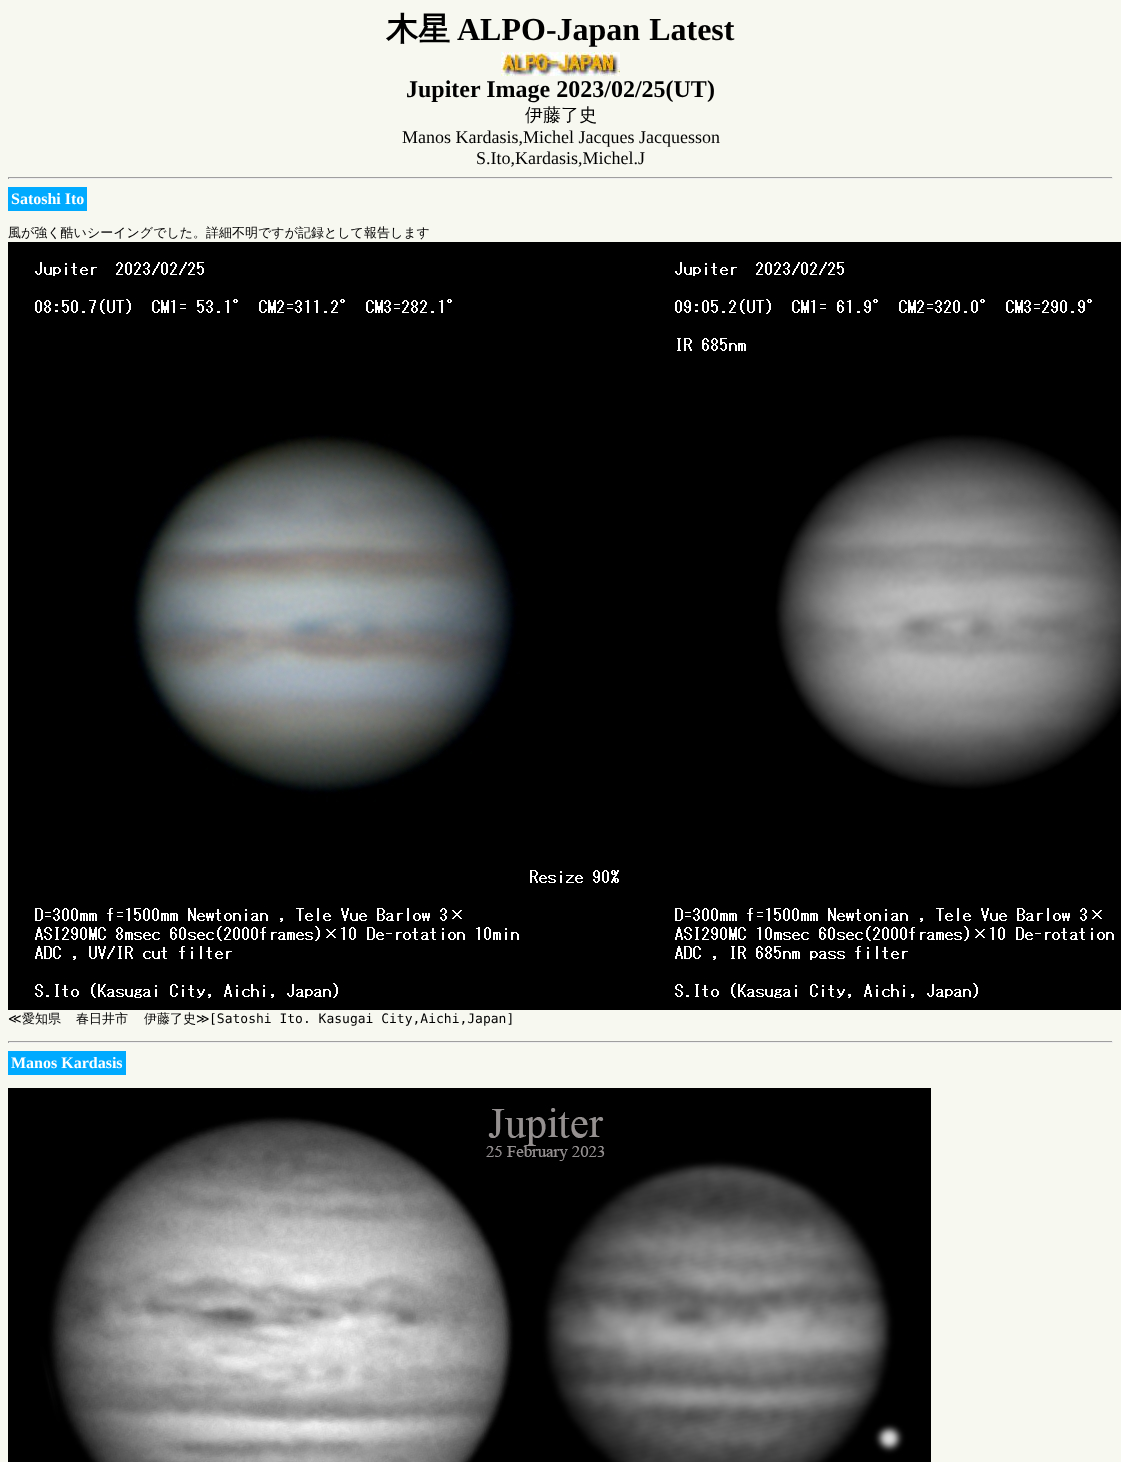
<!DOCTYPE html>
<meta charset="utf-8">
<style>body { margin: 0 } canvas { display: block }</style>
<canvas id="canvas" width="1121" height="1462"></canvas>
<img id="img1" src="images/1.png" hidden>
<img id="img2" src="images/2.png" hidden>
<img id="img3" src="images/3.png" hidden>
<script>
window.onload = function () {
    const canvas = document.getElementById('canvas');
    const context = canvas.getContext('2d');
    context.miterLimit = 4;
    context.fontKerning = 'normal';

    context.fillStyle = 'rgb(247, 248, 240)';
    context.fillRect(0, 0, 1121, 1462);
    context.drawImage(document.getElementById('img1'), 501, 52, 119, 24);
    context.fillStyle = 'rgb(159, 159, 159)';
    context.fillRect(8, 177, 1105, 1);
    context.fillStyle = 'rgb(238, 238, 238)';
    context.fillRect(1112, 177, 1, 2);
    context.fillRect(8, 178, 1105, 1);
    context.fillStyle = 'rgb(159, 159, 159)';
    context.fillRect(8, 177, 1, 2);
    context.fillStyle = 'rgb(0, 170, 255)';
    context.fillRect(8, 187, 79, 24);
    context.drawImage(document.getElementById('img2'), 8, 242, 1113, 768);
    context.fillStyle = 'rgb(159, 159, 159)';
    context.fillRect(8, 1041, 1105, 1);
    context.fillStyle = 'rgb(238, 238, 238)';
    context.fillRect(1112, 1041, 1, 2);
    context.fillRect(8, 1042, 1105, 1);
    context.fillStyle = 'rgb(159, 159, 159)';
    context.fillRect(8, 1041, 1, 2);
    context.fillStyle = 'rgb(0, 170, 255)';
    context.fillRect(8, 1051, 118, 24);
    context.drawImage(document.getElementById('img3'), 8, 1088, 923, 374);
    context.font = 'bold 32px WenQuanYi Zen Hei';
    context.fillStyle = 'rgb(0, 0, 0)';
    context.fillText('木星', 386, 40);
    context.wordSpacing = '1px';
    context.font = 'bold 32px Liberation Serif';
    context.fillText('ALPO-Japan Latest', 457, 40);
    context.wordSpacing = '0px';
    context.font = 'bold 24px Liberation Serif';
    context.fillText('Jupiter Image 2023/02/25(UT)', 406, 97);
    context.font = '500 18px WenQuanYi Zen Hei';
    context.fillText('伊藤了史', 525, 121);
    context.font = '18px Liberation Serif';
    context.fillText('Manos Kardasis,Michel Jacques Jacquesson', 402, 143);
    context.fillText('S.Ito,Kardasis,Michel.J', 476, 164);
    context.font = 'bold 16px Liberation Serif';
    context.fillStyle = 'rgb(255, 255, 255)';
    context.fillText('Satoshi Ito', 11, 204);
    context.font = '500 13px WenQuanYi Zen Hei';
    context.fillStyle = 'rgb(0, 0, 0)';
    context.fillText('風が強く酷いシーイングでした。詳細不明ですが記録として報告します', 8, 237);
    context.font = '13px DejaVu Sans';
    context.fillText('≪', 8, 1023);
    context.font = '500 13px WenQuanYi Zen Hei';
    context.fillText('愛知県', 22, 1023);
    context.fillText('春日井市', 76, 1023);
    context.fillText('伊藤了史', 144, 1023);
    context.font = '13px DejaVu Sans';
    context.fillText('≫', 196, 1023);
    context.font = '13px DejaVu Sans Mono';
    context.fillText('[Satoshi Ito. Kasugai City,Aichi,Japan]', 209, 1023);
    context.font = 'bold 16px Liberation Serif';
    context.fillStyle = 'rgb(255, 255, 255)';
    context.fillText('Manos Kardasis', 11, 1068);
};
</script>
